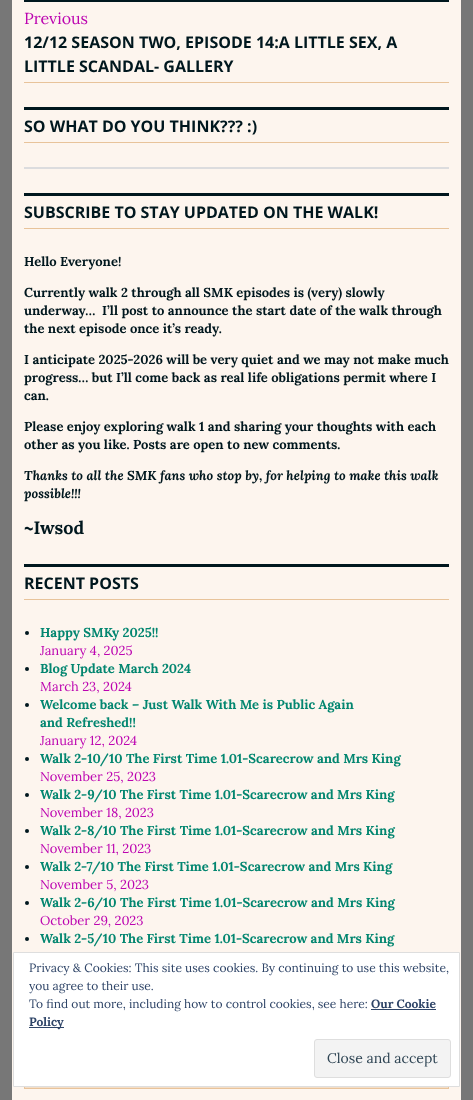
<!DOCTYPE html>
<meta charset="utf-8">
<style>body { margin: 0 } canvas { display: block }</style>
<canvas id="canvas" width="473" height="1100"></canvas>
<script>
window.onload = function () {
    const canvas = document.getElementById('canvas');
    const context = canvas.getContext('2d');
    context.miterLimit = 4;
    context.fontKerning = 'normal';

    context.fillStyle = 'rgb(119, 119, 119)';
    context.fillRect(0, 0, 473, 1100);
    context.fillStyle = 'rgb(253, 245, 238)';
    context.fillRect(12, 0, 449, 1100);
    context.fillStyle = 'rgb(0, 23, 30)';
    context.fillRect(24, 0, 425, 2);
    context.fillStyle = 'rgb(232, 195, 154)';
    context.fillRect(24, 82, 425, 1);
    context.fillStyle = 'rgb(0, 23, 30)';
    context.fillRect(24, 107, 425, 3);
    context.fillStyle = 'rgb(232, 195, 154)';
    context.fillRect(24, 142, 425, 1);
    context.fillStyle = 'rgb(220, 220, 222)';
    context.fillRect(24, 167, 425, 2);
    context.fillStyle = 'rgb(0, 23, 30)';
    context.fillRect(24, 193, 425, 3);
    context.fillStyle = 'rgb(232, 195, 154)';
    context.fillRect(24, 228, 425, 1);
    context.fillStyle = 'rgb(0, 23, 30)';
    context.fillRect(24, 564, 425, 3);
    context.fillStyle = 'rgb(232, 195, 154)';
    context.fillRect(24, 599, 425, 1);
    context.fillStyle = 'rgb(0, 23, 30)';
    context.beginPath();
    context.arc(27, 633, 2, 0, 2 * Math.PI);
    context.fill();
    context.beginPath();
    context.arc(27, 669, 2, 0, 2 * Math.PI);
    context.fill();
    context.beginPath();
    context.arc(27, 705, 2, 0, 2 * Math.PI);
    context.fill();
    context.beginPath();
    context.arc(27, 759, 2, 0, 2 * Math.PI);
    context.fill();
    context.beginPath();
    context.arc(27, 795, 2, 0, 2 * Math.PI);
    context.fill();
    context.beginPath();
    context.arc(27, 831, 2, 0, 2 * Math.PI);
    context.fill();
    context.beginPath();
    context.arc(27, 867, 2, 0, 2 * Math.PI);
    context.fill();
    context.beginPath();
    context.arc(27, 903, 2, 0, 2 * Math.PI);
    context.fill();
    context.beginPath();
    context.arc(27, 939, 2, 0, 2 * Math.PI);
    context.fill();
    context.fillStyle = 'rgb(244, 222, 199)';
    context.fillRect(25, 1087, 423, 1);
    context.strokeStyle = 'rgb(232, 195, 154)';
    context.strokeRect(24.5, 1053.5, 424, 35);
    context.fillStyle = 'rgb(255, 255, 255)';
    context.beginPath();
    context.rect(13.5, 952.5, 446, 134);
    context.fill();
    context.strokeStyle = 'rgb(222, 222, 222)';
    context.stroke();
    context.fillStyle = 'rgb(46, 68, 103)';
    context.fillRect(371, 1009, 65, 1);
    context.fillRect(29, 1027, 35, 1);
    context.fillStyle = 'rgb(243, 243, 243)';
    context.beginPath();
    context.roundRect(314.5, 1039.5, 136, 38, 2.5);
    context.fill();
    context.stroke();
    context.font = '16px Lora';
    context.fillStyle = 'rgb(188, 4, 176)';
    context.fillText('Previous', 24, 24);
    context.font = 'bold 16px Open Sans';
    context.fillStyle = 'rgb(0, 23, 30)';
    context.fillText('12/12 SEASON TWO, EPISODE 14:A LITTLE SEX, A', 24, 48);
    context.fillText('LITTLE SCANDAL- GALLERY', 24, 72);
    context.fillText('SO WHAT DO YOU THINK??? :)', 24, 132);
    context.fillText('SUBSCRIBE TO STAY UPDATED ON THE WALK!', 24, 218);
    context.font = 'bold 13px Lora';
    context.fillText('Hello Everyone!', 24, 266);
    context.fillText('Currently walk 2 through all SMK episodes is (very) slowly', 24, 297);
    context.fillText('underway…  I’ll post to announce the start date of the walk through', 24, 315);
    context.fillText('the next episode once it’s ready.', 24, 333);
    context.fillText('I anticipate 2025-2026 will be very quiet and we may not make much', 24, 364);
    context.fillText('progress… but I’ll come back as real life obligations permit where I', 24, 382);
    context.fillText('can.', 24, 400);
    context.fillText('Please enjoy exploring walk 1 and sharing your thoughts with each', 24, 431);
    context.fillText('other as you like. Posts are open to new comments.', 24, 449);
    context.font = 'italic bold 13px Lora';
    context.fillText('Thanks to all the SMK fans who stop by, for helping to make this walk', 24, 480);
    context.fillText('possible!!!', 24, 498);
    context.font = 'bold 18px Lora';
    context.fillText('~Iwsod', 24, 534);
    context.font = 'bold 16px Open Sans';
    context.fillText('RECENT POSTS', 24, 589);
    context.font = 'bold 13px Lora';
    context.fillStyle = 'rgb(3, 134, 112)';
    context.fillText('Happy SMKy 2025!!', 40, 637);
    context.font = '13px Lora';
    context.fillStyle = 'rgb(188, 4, 176)';
    context.fillText('January 4, 2025', 40, 655);
    context.font = 'bold 13px Lora';
    context.fillStyle = 'rgb(3, 134, 112)';
    context.fillText('Blog Update March 2024', 40, 673);
    context.font = '13px Lora';
    context.fillStyle = 'rgb(188, 4, 176)';
    context.fillText('March 23, 2024', 40, 691);
    context.font = 'bold 13px Lora';
    context.fillStyle = 'rgb(3, 134, 112)';
    context.fillText('Welcome back – Just Walk With Me is Public Again', 40, 709);
    context.fillText('and Refreshed!!', 40, 727);
    context.font = '13px Lora';
    context.fillStyle = 'rgb(188, 4, 176)';
    context.fillText('January 12, 2024', 40, 745);
    context.font = 'bold 13px Lora';
    context.fillStyle = 'rgb(3, 134, 112)';
    context.fillText('Walk 2-10/10 The First Time 1.01-Scarecrow and Mrs King', 40, 763);
    context.font = '13px Lora';
    context.fillStyle = 'rgb(188, 4, 176)';
    context.fillText('November 25, 2023', 40, 781);
    context.font = 'bold 13px Lora';
    context.fillStyle = 'rgb(3, 134, 112)';
    context.fillText('Walk 2-9/10 The First Time 1.01-Scarecrow and Mrs King', 40, 799);
    context.font = '13px Lora';
    context.fillStyle = 'rgb(188, 4, 176)';
    context.fillText('November 18, 2023', 40, 817);
    context.font = 'bold 13px Lora';
    context.fillStyle = 'rgb(3, 134, 112)';
    context.fillText('Walk 2-8/10 The First Time 1.01-Scarecrow and Mrs King', 40, 835);
    context.font = '13px Lora';
    context.fillStyle = 'rgb(188, 4, 176)';
    context.fillText('November 11, 2023', 40, 853);
    context.font = 'bold 13px Lora';
    context.fillStyle = 'rgb(3, 134, 112)';
    context.fillText('Walk 2-7/10 The First Time 1.01-Scarecrow and Mrs King', 40, 871);
    context.font = '13px Lora';
    context.fillStyle = 'rgb(188, 4, 176)';
    context.fillText('November 5, 2023', 40, 889);
    context.font = 'bold 13px Lora';
    context.fillStyle = 'rgb(3, 134, 112)';
    context.fillText('Walk 2-6/10 The First Time 1.01-Scarecrow and Mrs King', 40, 907);
    context.font = '13px Lora';
    context.fillStyle = 'rgb(188, 4, 176)';
    context.fillText('October 29, 2023', 40, 925);
    context.font = 'bold 13px Lora';
    context.fillStyle = 'rgb(3, 134, 112)';
    context.fillText('Walk 2-5/10 The First Time 1.01-Scarecrow and Mrs King', 40, 943);
    context.font = '12px Lora';
    context.fillStyle = 'rgb(46, 68, 103)';
    context.fillText('Privacy & Cookies: This site uses cookies. By continuing to use this website,', 29, 972);
    context.fillText('you agree to their use.', 29, 990);
    context.fillText('To find out more, including how to control cookies, see here:', 29, 1008);
    context.font = 'bold 12px Lora';
    context.fillText('Our Cookie', 371, 1008);
    context.fillText('Policy', 29, 1026);
    context.font = '14px Lora';
    context.fillStyle = 'rgb(46, 68, 83)';
    context.fillText('Close and accept', 327, 1063);
};
</script>
